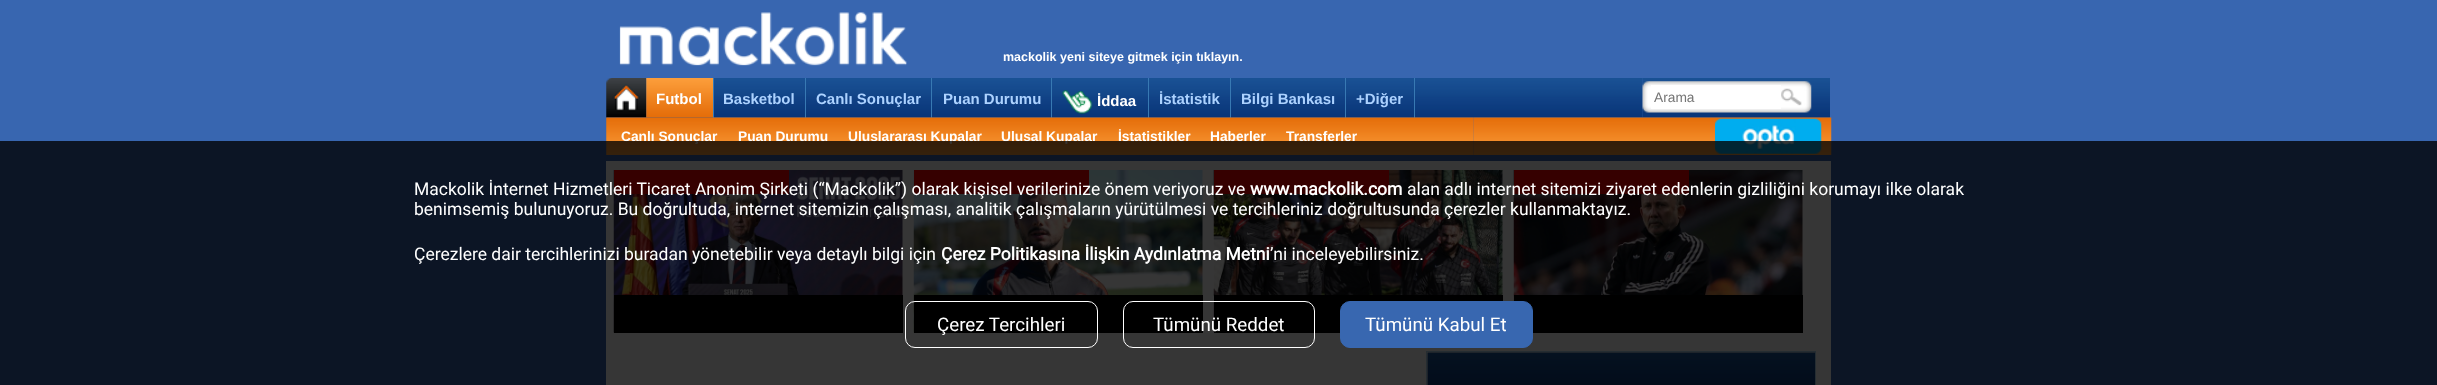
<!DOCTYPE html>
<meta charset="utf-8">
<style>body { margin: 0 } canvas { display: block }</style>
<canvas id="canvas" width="2437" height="385"></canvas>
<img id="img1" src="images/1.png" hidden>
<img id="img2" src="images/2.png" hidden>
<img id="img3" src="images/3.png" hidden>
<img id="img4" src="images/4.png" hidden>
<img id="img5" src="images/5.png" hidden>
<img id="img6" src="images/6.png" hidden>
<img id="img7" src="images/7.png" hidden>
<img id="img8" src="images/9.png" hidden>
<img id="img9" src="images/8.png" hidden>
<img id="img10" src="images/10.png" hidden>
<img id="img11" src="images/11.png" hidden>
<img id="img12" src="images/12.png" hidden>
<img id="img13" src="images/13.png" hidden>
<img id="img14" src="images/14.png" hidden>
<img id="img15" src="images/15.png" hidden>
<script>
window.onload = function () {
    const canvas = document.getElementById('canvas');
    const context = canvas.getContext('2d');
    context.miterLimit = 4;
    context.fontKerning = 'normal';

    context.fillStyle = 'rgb(56, 102, 176)';
    context.fillRect(0, 0, 2437, 385);
    context.drawImage(document.getElementById('img1'), 619, 12, 288, 54);
    context.drawImage(document.getElementById('img2'), 606, 78, 41, 40);
    context.drawImage(document.getElementById('img3'), 646, 78, 997, 40);
    context.drawImage(document.getElementById('img4'), 646, 78, 67, 40);
    context.fillStyle = 'rgb(56, 121, 179)';
    context.fillRect(713, 78, 1, 40);
    context.fillRect(805, 78, 1, 40);
    context.fillRect(931, 78, 1, 40);
    context.fillRect(1051, 78, 1, 40);
    context.fillRect(1148, 78, 1, 40);
    context.drawImage(document.getElementById('img5'), 1062, 90, 31, 24);
    context.fillRect(1230, 78, 1, 40);
    context.fillRect(1345, 78, 1, 40);
    context.fillRect(1414, 78, 1, 40);
    context.drawImage(document.getElementById('img6'), 1642, 78, 188, 40);
    context.drawImage(document.getElementById('img7'), 1642, 81, 170, 32);
    context.fillStyle = 'rgb(255, 255, 255)';
    context.fillRect(1651, 85, 130, 24);
    context.drawImage(document.getElementById('img8'), 1473, 117, 359, 38);
    context.drawImage(document.getElementById('img9'), 606, 117, 868, 38);
    context.drawImage(document.getElementById('img10'), 1715, 118, 107, 36);
    context.fillRect(606, 161, 1225, 224);
    context.drawImage(document.getElementById('img11'), 613, 170, 290, 163);
    context.fillStyle = 'rgb(255, 0, 0)';
    context.fillRect(614, 170, 175, 24);
    context.fillStyle = 'rgb(0, 0, 0)';
    context.fillRect(614, 295, 289, 38);
    context.drawImage(document.getElementById('img12'), 913, 170, 290, 163);
    context.fillStyle = 'rgb(255, 0, 0)';
    context.fillRect(914, 170, 175, 24);
    context.fillStyle = 'rgb(0, 0, 0)';
    context.fillRect(914, 295, 289, 38);
    context.drawImage(document.getElementById('img13'), 1213, 170, 290, 163);
    context.fillStyle = 'rgb(255, 0, 0)';
    context.fillRect(1214, 170, 175, 24);
    context.fillStyle = 'rgb(0, 0, 0)';
    context.fillRect(1214, 295, 289, 38);
    context.drawImage(document.getElementById('img14'), 1513, 170, 290, 131);
    context.fillStyle = 'rgb(255, 0, 0)';
    context.fillRect(1514, 170, 175, 24);
    context.fillStyle = 'rgb(0, 0, 0)';
    context.fillRect(1514, 295, 289, 38);
    context.strokeStyle = 'rgb(176, 213, 237)';
    context.strokeRect(1426.5, 351.5, 389, 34);
    context.drawImage(document.getElementById('img15'), 1427, 352, 388, 33);
    context.font = 'bold 12.5px Liberation Sans';
    context.fillStyle = 'rgb(255, 255, 255)';
    context.fillText('mackolik yeni siteye gitmek için tıklayın.', 1003, 61);
    context.font = 'bold 15px Liberation Sans';
    context.fillText('Futbol', 656, 104);
    context.fillStyle = 'rgb(172, 210, 255)';
    context.fillText('Basketbol', 723, 104);
    context.fillText('Canlı Sonuçlar', 816, 104);
    context.fillText('Puan Durumu', 943, 104);
    context.fillStyle = 'rgb(255, 255, 255)';
    context.fillText('İddaa', 1097, 106);
    context.fillStyle = 'rgb(172, 210, 255)';
    context.fillText('İstatistik', 1159, 104);
    context.fillText('Bilgi Bankası', 1241, 104);
    context.fillText('+Diğer', 1356, 104);
    context.font = '13.75px Liberation Sans';
    context.fillStyle = 'rgb(117, 117, 117)';
    context.fillText('Arama', 1654, 102);
    context.font = 'bold 13.75px Liberation Sans';
    context.fillStyle = 'rgb(255, 255, 255)';
    context.fillText('Canlı Sonuçlar', 621, 141);
    context.fillText('Puan Durumu', 738, 141);
    context.fillText('Uluslararası Kupalar', 848, 141);
    context.fillText('Ulusal Kupalar', 1001, 141);
    context.fillText('İstatistikler', 1118, 141);
    context.fillText('Haberler', 1210, 141);
    context.fillText('Transferler', 1286, 141);
    context.fillStyle = 'rgba(0, 0, 0, 0.79)';
    context.fillRect(0, 141, 2437, 244);
    context.font = '17.5px Roboto';
    context.fillStyle = 'rgb(255, 255, 255)';
    context.fillText('Mackolik İnternet Hizmetleri Ticaret Anonim Şirketi (“Mackolik”) olarak kişisel verilerinize önem veriyoruz ve', 414, 195);
    context.font = 'bold 17.5px Roboto';
    context.fillText('www.mackolik.com', 1250, 195);
    context.font = '17.5px Roboto';
    context.fillText('alan adlı internet sitemizi ziyaret edenlerin gizliliğini korumayı ilke olarak', 1407, 195);
    context.fillText('benimsemiş bulunuyoruz. Bu doğrultuda, internet sitemizin çalışması, analitik çalışmaların yürütülmesi ve tercihleriniz doğrultusunda çerezler kullanmaktayız.', 414, 215);
    context.fillText('Çerezlere dair tercihlerinizi buradan yönetebilir veya detaylı bilgi için', 414, 260);
    context.font = 'bold 17.5px Roboto';
    context.fillText('Çerez Politikasına İlişkin Aydınlatma Metni', 941, 260);
    context.font = '17.5px Roboto';
    context.fillText('’ni inceleyebilirsiniz.', 1270, 260);
    context.beginPath();
    context.roundRect(905.5, 301.5, 192, 46, 9.5);
    context.strokeStyle = 'rgb(255, 255, 255)';
    context.stroke();
    context.font = '18.75px Roboto';
    context.fillText('Çerez Tercihleri', 937, 331);
    context.beginPath();
    context.roundRect(1123.5, 301.5, 191, 46, 9.5);
    context.stroke();
    context.fillText('Tümünü Reddet', 1153, 331);
    context.fillStyle = 'rgb(56, 103, 176)';
    context.beginPath();
    context.roundRect(1340.5, 301.5, 192, 46, 9.5);
    context.fill();
    context.strokeStyle = 'rgb(56, 103, 176)';
    context.stroke();
    context.fillStyle = 'rgb(255, 255, 255)';
    context.fillText('Tümünü Kabul Et', 1365, 331);
};
</script>
